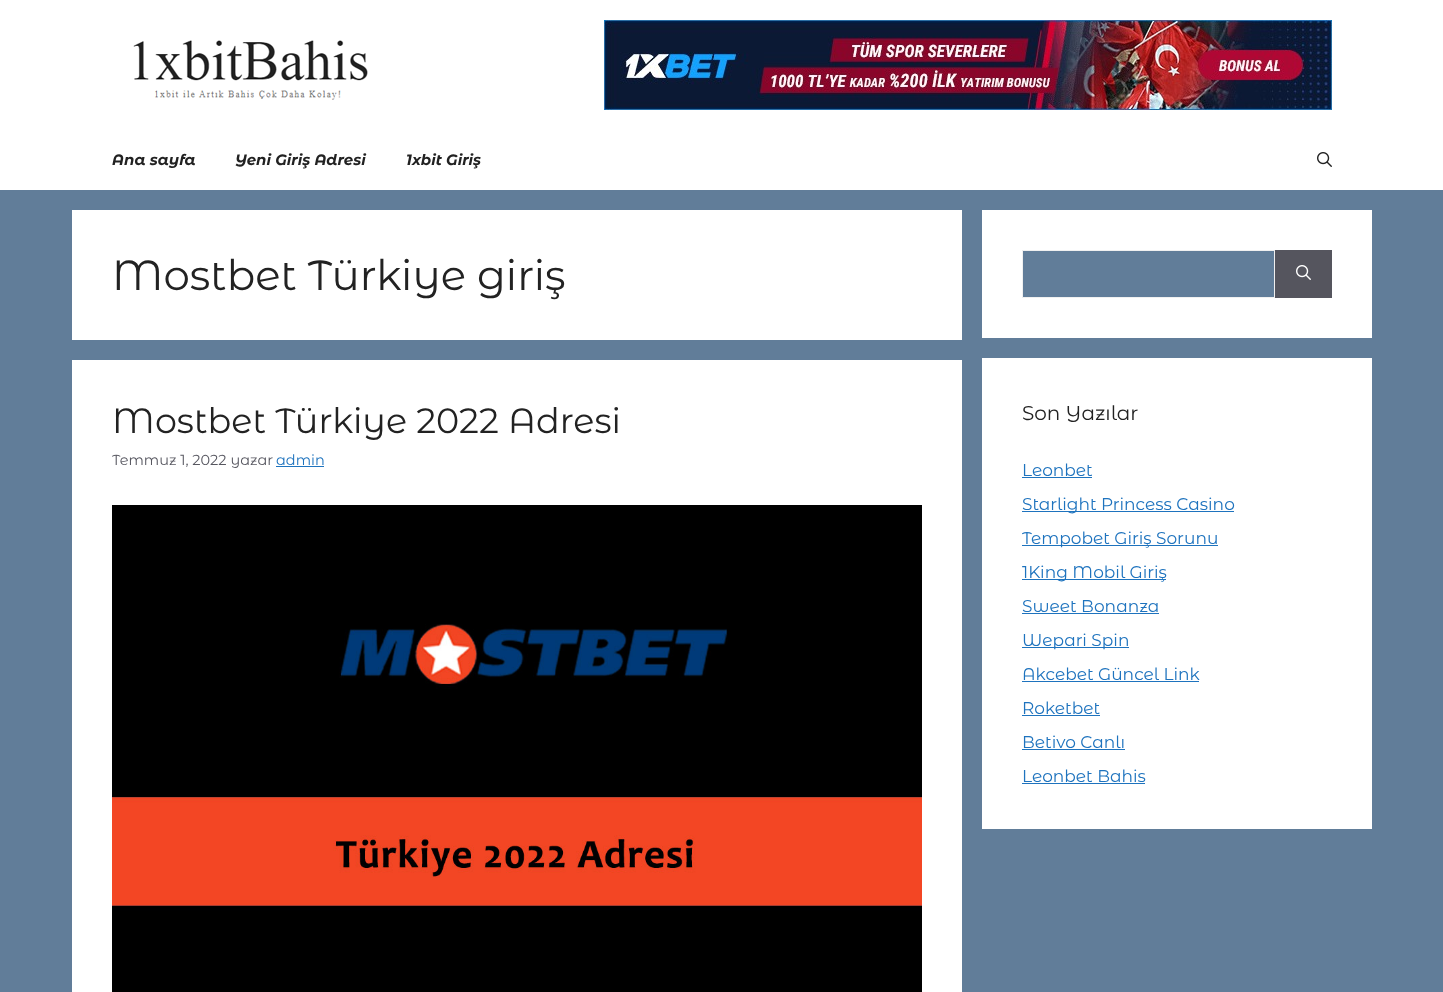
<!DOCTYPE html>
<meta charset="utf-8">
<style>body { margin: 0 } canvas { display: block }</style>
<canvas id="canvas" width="1443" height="992"></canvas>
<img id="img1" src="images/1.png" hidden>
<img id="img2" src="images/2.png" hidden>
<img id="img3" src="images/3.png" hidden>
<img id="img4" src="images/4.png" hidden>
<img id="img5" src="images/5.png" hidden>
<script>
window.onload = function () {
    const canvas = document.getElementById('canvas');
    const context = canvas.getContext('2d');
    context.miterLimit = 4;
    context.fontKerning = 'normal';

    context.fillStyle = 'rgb(97, 125, 153)';
    context.fillRect(0, 0, 1443, 992);
    context.fillStyle = 'rgb(255, 255, 255)';
    context.fillRect(0, 0, 1443, 190);
    context.drawImage(document.getElementById('img1'), 133, 40, 235, 60);
    context.drawImage(document.getElementById('img2'), 604, 20, 728, 90);
    context.drawImage(document.getElementById('img3'), 1317, 152, 15, 15);
    context.fillRect(72, 210, 890, 130);
    context.fillRect(72, 360, 890, 632);
    context.fillStyle = 'rgb(30, 115, 190)';
    context.fillRect(276, 466, 48, 1);
    context.drawImage(document.getElementById('img4'), 112, 505, 810, 487);
    context.fillStyle = 'rgb(255, 255, 255)';
    context.fillRect(982, 210, 390, 128);
    context.fillStyle = 'rgb(97, 125, 153)';
    context.beginPath();
    context.rect(1022.5, 250.5, 252, 47);
    context.fill();
    context.strokeStyle = 'rgb(240, 240, 240)';
    context.stroke();
    context.fillStyle = 'rgb(85, 85, 94)';
    context.fillRect(1275, 250, 57, 48);
    context.drawImage(document.getElementById('img5'), 1296, 265, 15, 15);
    context.fillStyle = 'rgb(255, 255, 255)';
    context.fillRect(982, 358, 390, 471);
    context.fillStyle = 'rgb(30, 115, 190)';
    context.fillRect(1022, 477, 70, 1);
    context.fillRect(1022, 511, 212, 1);
    context.fillRect(1022, 545, 196, 1);
    context.fillRect(1022, 579, 144, 1);
    context.fillRect(1022, 613, 137, 1);
    context.fillRect(1022, 647, 107, 1);
    context.fillRect(1022, 681, 177, 1);
    context.fillRect(1022, 715, 78, 1);
    context.fillRect(1022, 749, 103, 1);
    context.fillRect(1022, 783, 123, 1);
    context.font = 'italic bold 15px Montserrat Alternates';
    context.fillStyle = 'rgb(34, 34, 34)';
    context.fillText('Ana sayfa', 112, 165);
    context.fillText('Yeni Giriş Adresi', 235, 165);
    context.fillText('1xbit Giriş', 406, 165);
    context.font = '42px Montserrat Alternates';
    context.fillText('Mostbet Türkiye giriş', 112, 290);
    context.font = '35px Montserrat Alternates';
    context.fillText('Mostbet Türkiye 2022 Adresi', 112, 433);
    context.font = '14.5px Montserrat Alternates';
    context.fillStyle = 'rgb(87, 87, 96)';
    context.fillText('Temmuz 1, 2022 yazar', 112, 465);
    context.fillStyle = 'rgb(30, 115, 190)';
    context.fillText('admin', 276, 465);
    context.font = '20px Montserrat Alternates';
    context.fillStyle = 'rgb(34, 34, 34)';
    context.fillText('Son Yazılar', 1022, 420);
    context.font = '17px Montserrat Alternates';
    context.fillStyle = 'rgb(30, 115, 190)';
    context.fillText('Leonbet', 1022, 476);
    context.fillText('Starlight Princess Casino', 1022, 510);
    context.fillText('Tempobet Giriş Sorunu', 1022, 544);
    context.fillText('1King Mobil Giriş', 1022, 578);
    context.fillText('Sweet Bonanza', 1022, 612);
    context.fillText('Wepari Spin', 1022, 646);
    context.fillText('Akcebet Güncel Link', 1022, 680);
    context.fillText('Roketbet', 1022, 714);
    context.fillText('Betivo Canlı', 1022, 748);
    context.fillText('Leonbet Bahis', 1022, 782);
};
</script>
